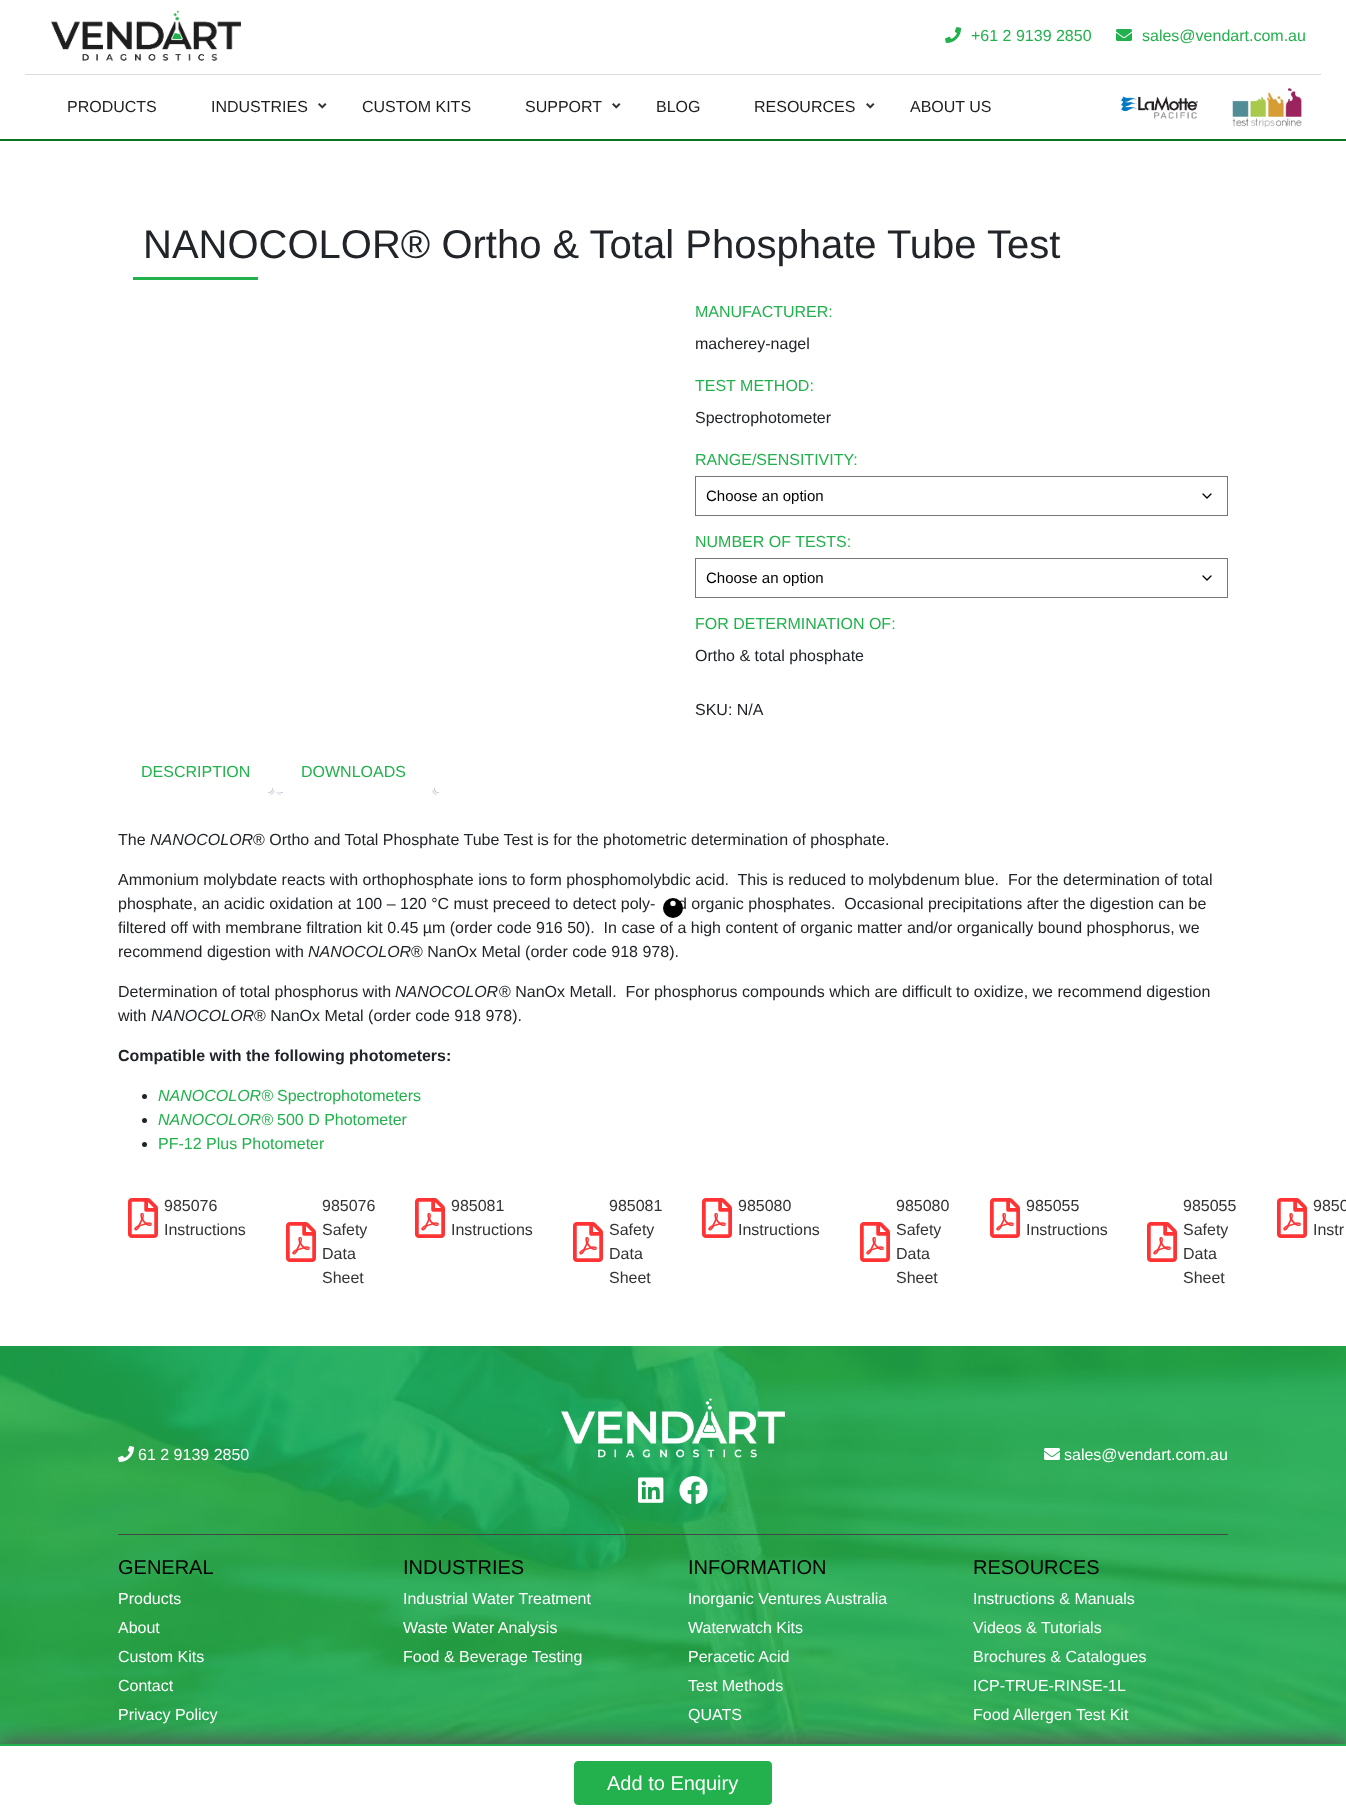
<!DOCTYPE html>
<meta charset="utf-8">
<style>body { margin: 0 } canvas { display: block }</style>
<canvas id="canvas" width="1346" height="1815"></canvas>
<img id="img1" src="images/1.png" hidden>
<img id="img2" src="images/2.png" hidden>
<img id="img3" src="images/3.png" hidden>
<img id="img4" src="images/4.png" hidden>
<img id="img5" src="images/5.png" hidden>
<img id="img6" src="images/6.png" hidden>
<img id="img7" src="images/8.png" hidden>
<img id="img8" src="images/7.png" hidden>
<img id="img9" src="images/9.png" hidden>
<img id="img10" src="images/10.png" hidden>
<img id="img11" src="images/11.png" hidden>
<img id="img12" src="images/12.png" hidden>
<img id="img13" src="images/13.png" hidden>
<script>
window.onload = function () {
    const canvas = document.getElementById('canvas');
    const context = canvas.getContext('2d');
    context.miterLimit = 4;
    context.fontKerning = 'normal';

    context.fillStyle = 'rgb(255, 255, 255)';
    context.fillRect(0, 0, 1346, 1815);
    context.fillStyle = 'rgb(11, 116, 37)';
    context.fillRect(0, 139, 1346, 2);
    context.drawImage(document.getElementById('img1'), 51, 10, 190, 51);
    context.drawImage(document.getElementById('img2'), 945, 27, 16, 16);
    context.drawImage(document.getElementById('img3'), 1116, 29, 16, 12);
    context.fillStyle = 'rgb(219, 219, 219)';
    context.fillRect(25, 74, 1296, 1);
    context.drawImage(document.getElementById('img4'), 318, 103, 9, 6);
    context.drawImage(document.getElementById('img4'), 612, 103, 9, 6);
    context.drawImage(document.getElementById('img4'), 866, 103, 9, 6);
    context.drawImage(document.getElementById('img5'), 1121, 96, 77, 23);
    context.drawImage(document.getElementById('img6'), 1232, 87, 70, 41);
    context.fillStyle = 'rgb(34, 177, 76)';
    context.fillRect(133, 277, 125, 3);
    context.beginPath();
    context.moveTo(1203, 494);
    context.lineTo(1207, 498);
    context.lineTo(1211, 494);
    context.strokeStyle = 'rgb(0, 0, 0)';
    context.lineWidth = 1.3;
    context.lineCap = 'round';
    context.lineJoin = 'round';
    context.stroke();
    context.strokeStyle = 'rgb(118, 118, 118)';
    context.lineWidth = 1;
    context.lineJoin = 'miter';
    context.strokeRect(695.5, 476.5, 532, 39);
    context.beginPath();
    context.moveTo(1203, 576);
    context.lineTo(1207, 580);
    context.lineTo(1211, 576);
    context.strokeStyle = 'rgb(0, 0, 0)';
    context.lineWidth = 1.3;
    context.lineJoin = 'round';
    context.stroke();
    context.strokeStyle = 'rgb(118, 118, 118)';
    context.lineWidth = 1;
    context.lineJoin = 'miter';
    context.strokeRect(695.5, 558.5, 532, 39);
    context.drawImage(document.getElementById('img7'), 0, 1346, 1346, 398);
    context.fillStyle = 'rgb(85, 85, 85)';
    context.filter = 'blur(10px)';
    context.beginPath();
    context.rect(1, 1740, 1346, 71);
    context.fill();
    context.filter = 'none';
    context.fillStyle = 'rgb(255, 255, 255)';
    context.fillRect(0, 1746, 1346, 69);
    context.fillStyle = 'rgb(34, 177, 76)';
    context.fillRect(0, 1744, 1346, 2);
    context.beginPath();
    context.roundRect(574.5, 1761.5, 197, 43, 3.5);
    context.fill();
    context.strokeStyle = 'rgb(34, 177, 76)';
    context.stroke();
    context.fillStyle = 'rgb(233, 230, 237)';
    context.beginPath();
    context.moveTo(276, 790);
    context.bezierCurveTo(276, 793.5, 277.5, 795, 281, 795);
    context.lineTo(281, 793);
    context.bezierCurveTo(279.5, 792.5, 278.5, 791.5, 278, 790);
    context.closePath();
    context.fill();
    context.fillStyle = 'rgb(207, 200, 216)';
    context.beginPath();
    context.moveTo(278, 788);
    context.lineTo(283, 788);
    context.lineTo(283, 793);
    context.bezierCurveTo(280.5, 793, 278, 792, 278, 789);
    context.closePath();
    context.moveTo(279, 788);
    context.lineTo(283, 788);
    context.lineTo(283, 792);
    context.bezierCurveTo(281, 792, 279, 791.5, 279, 789);
    context.closePath();
    context.fill('evenodd');
    context.fillStyle = 'rgb(255, 255, 255)';
    context.beginPath();
    context.roundRect(273, 754, 161, 38, [4, 4, 0, 0]);
    context.fill();
    context.fillStyle = 'rgb(233, 230, 237)';
    context.beginPath();
    context.moveTo(270, 793);
    context.lineTo(270, 795);
    context.bezierCurveTo(273.5, 795, 275, 793.5, 275, 790);
    context.lineTo(273, 790);
    context.bezierCurveTo(272.5, 791.5, 271.5, 792.5, 270, 793);
    context.closePath();
    context.fill();
    context.fillStyle = 'rgb(207, 200, 216)';
    context.beginPath();
    context.moveTo(268, 788);
    context.lineTo(273, 788);
    context.bezierCurveTo(273, 791.5, 271.5, 793, 268, 793);
    context.closePath();
    context.moveTo(268, 788);
    context.lineTo(272, 788);
    context.bezierCurveTo(272, 791, 271, 792, 268, 792);
    context.closePath();
    context.fill('evenodd');
    context.fillStyle = 'rgb(233, 230, 237)';
    context.beginPath();
    context.moveTo(432, 790);
    context.bezierCurveTo(432, 793.5, 433.5, 795, 437, 795);
    context.lineTo(437, 793);
    context.bezierCurveTo(435.5, 792.5, 434.5, 791.5, 434, 790);
    context.closePath();
    context.fill();
    context.fillStyle = 'rgb(207, 200, 216)';
    context.beginPath();
    context.moveTo(434, 788);
    context.lineTo(439, 788);
    context.lineTo(439, 793);
    context.bezierCurveTo(436.5, 793, 434, 792, 434, 789);
    context.closePath();
    context.moveTo(435, 788);
    context.lineTo(439, 788);
    context.lineTo(439, 792);
    context.bezierCurveTo(437, 792, 435, 791.5, 435, 789);
    context.closePath();
    context.fill('evenodd');
    context.fillStyle = 'rgb(33, 37, 41)';
    context.beginPath();
    context.arc(144.5, 1096.5, 2.5, 0, 2 * Math.PI);
    context.fill();
    context.beginPath();
    context.arc(144.5, 1120.5, 2.5, 0, 2 * Math.PI);
    context.fill();
    context.beginPath();
    context.arc(144.5, 1144.5, 2.5, 0, 2 * Math.PI);
    context.fill();
    context.drawImage(document.getElementById('img8'), 128, 1198, 30, 40);
    context.drawImage(document.getElementById('img8'), 286, 1222, 30, 40);
    context.drawImage(document.getElementById('img8'), 415, 1198, 30, 40);
    context.drawImage(document.getElementById('img8'), 573, 1222, 30, 40);
    context.drawImage(document.getElementById('img8'), 702, 1198, 30, 40);
    context.drawImage(document.getElementById('img8'), 860, 1222, 30, 40);
    context.drawImage(document.getElementById('img8'), 990, 1198, 30, 40);
    context.drawImage(document.getElementById('img8'), 1147, 1222, 30, 40);
    context.drawImage(document.getElementById('img8'), 1277, 1198, 30, 40);
    context.fillStyle = 'rgb(70, 70, 70)';
    context.fillRect(118, 1534, 1110, 1);
    context.drawImage(document.getElementById('img9'), 118, 1446, 16, 16);
    context.drawImage(document.getElementById('img10'), 561, 1398, 224, 60);
    context.drawImage(document.getElementById('img11'), 638, 1477, 26, 26);
    context.drawImage(document.getElementById('img12'), 679, 1476, 29, 28);
    context.drawImage(document.getElementById('img13'), 1044, 1448, 16, 12);
    context.font = '16px Liberation Sans';
    context.fillStyle = 'rgb(34, 177, 76)';
    context.fillText('+61 2 9139 2850', 971, 41);
    context.fillText('sales@vendart.com.au', 1142, 41);
    context.fillStyle = 'rgb(30, 30, 30)';
    context.fillText('PRODUCTS', 67, 112);
    context.fillText('INDUSTRIES', 211, 112);
    context.fillText('CUSTOM KITS', 362, 112);
    context.fillText('SUPPORT', 525, 112);
    context.fillText('BLOG', 656, 112);
    context.fillText('RESOURCES', 754, 112);
    context.fillText('ABOUT US', 910, 112);
    context.font = '40px Liberation Sans';
    context.fillStyle = 'rgb(33, 37, 41)';
    context.fillText('NANOCOLOR® Ortho & Total Phosphate Tube Test', 143, 258);
    context.font = '16px Liberation Sans';
    context.fillStyle = 'rgb(34, 177, 76)';
    context.fillText('MANUFACTURER:', 695, 317);
    context.fillStyle = 'rgb(33, 37, 41)';
    context.fillText('macherey-nagel', 695, 349);
    context.fillStyle = 'rgb(34, 177, 76)';
    context.fillText('TEST METHOD:', 695, 391);
    context.fillStyle = 'rgb(33, 37, 41)';
    context.fillText('Spectrophotometer', 695, 423);
    context.fillStyle = 'rgb(34, 177, 76)';
    context.fillText('RANGE/SENSITIVITY:', 695, 465);
    context.font = '15px Liberation Sans';
    context.fillStyle = 'rgb(0, 0, 0)';
    context.fillText('Choose an option', 706, 501);
    context.font = '16px Liberation Sans';
    context.fillStyle = 'rgb(34, 177, 76)';
    context.fillText('NUMBER OF TESTS:', 695, 547);
    context.font = '15px Liberation Sans';
    context.fillStyle = 'rgb(0, 0, 0)';
    context.fillText('Choose an option', 706, 583);
    context.font = '16px Liberation Sans';
    context.fillStyle = 'rgb(34, 177, 76)';
    context.fillText('FOR DETERMINATION OF:', 695, 629);
    context.fillStyle = 'rgb(33, 37, 41)';
    context.fillText('Ortho & total phosphate', 695, 661);
    context.fillText('SKU: N/A', 695, 715);
    context.font = '20px Liberation Sans';
    context.fillStyle = 'rgb(255, 255, 255)';
    context.fillText('Add to Enquiry', 607, 1790);
    context.font = '16px Liberation Sans';
    context.fillStyle = 'rgb(34, 177, 76)';
    context.fillText('DESCRIPTION', 141, 777);
    context.fillText('DOWNLOADS', 301, 777);
    context.fillStyle = 'rgb(33, 37, 41)';
    context.fillText('The', 118, 845);
    context.font = 'italic 16px Liberation Sans';
    context.fillText('NANOCOLOR', 150, 845);
    context.font = '16px Liberation Sans';
    context.fillText('® Ortho and Total Phosphate Tube Test is for the photometric determination of phosphate.', 253, 845);
    context.fillText('Ammonium molybdate reacts with orthophosphate ions to form phosphomolybdic acid.  This is reduced to molybdenum blue.  For the determination of total', 118, 885);
    context.fillText('phosphate, an acidic oxidation at 100 – 120 °C must preceed to detect poly-', 118, 909);
    context.fillText('d organic phosphates.  Occasional precipitations after the digestion can be', 678, 909);
    context.fillText('filtered off with membrane filtration kit 0.45 µm (order code 916 50).  In case of a high content of organic matter and/or organically bound phosphorus, we', 118, 933);
    context.fillText('recommend digestion with', 118, 957);
    context.font = 'italic 16px Liberation Sans';
    context.fillText('NANOCOLOR', 308, 957);
    context.font = '16px Liberation Sans';
    context.fillText('® NanOx Metal (order code 918 978).', 411, 957);
    context.fillText('Determination of total phosphorus with', 118, 997);
    context.font = 'italic 16px Liberation Sans';
    context.fillText('NANOCOLOR', 395, 997);
    context.font = '16px Liberation Sans';
    context.fillText('® NanOx Metall.  For phosphorus compounds which are difficult to oxidize, we recommend digestion', 499, 997);
    context.fillText('with', 118, 1021);
    context.font = 'italic 16px Liberation Sans';
    context.fillText('NANOCOLOR', 151, 1021);
    context.font = '16px Liberation Sans';
    context.fillText('® NanOx Metal (order code 918 978).', 254, 1021);
    context.font = 'bold 16px Liberation Sans';
    context.fillText('Compatible with the following photometers:', 118, 1061);
    context.font = 'italic 16px Liberation Sans';
    context.fillStyle = 'rgb(34, 177, 76)';
    context.fillText('NANOCOLOR®', 158, 1101);
    context.font = '16px Liberation Sans';
    context.fillText('Spectrophotometers', 277, 1101);
    context.font = 'italic 16px Liberation Sans';
    context.fillText('NANOCOLOR®', 158, 1125);
    context.font = '16px Liberation Sans';
    context.fillText('500 D Photometer', 277, 1125);
    context.fillText('PF-12 Plus Photometer', 158, 1149);
    context.fillStyle = 'rgb(51, 51, 51)';
    context.fillText('985076', 164, 1211);
    context.fillText('Instructions', 164, 1235);
    context.fillText('985076', 322, 1211);
    context.fillText('Safety', 322, 1235);
    context.fillText('Data', 322, 1259);
    context.fillText('Sheet', 322, 1283);
    context.fillText('985081', 451, 1211);
    context.fillText('Instructions', 451, 1235);
    context.fillText('985081', 609, 1211);
    context.fillText('Safety', 609, 1235);
    context.fillText('Data', 609, 1259);
    context.fillText('Sheet', 609, 1283);
    context.fillText('985080', 738, 1211);
    context.fillText('Instructions', 738, 1235);
    context.fillText('985080', 896, 1211);
    context.fillText('Safety', 896, 1235);
    context.fillText('Data', 896, 1259);
    context.fillText('Sheet', 896, 1283);
    context.fillText('985055', 1026, 1211);
    context.fillText('Instructions', 1026, 1235);
    context.fillText('985055', 1183, 1211);
    context.fillText('Safety', 1183, 1235);
    context.fillText('Data', 1183, 1259);
    context.fillText('Sheet', 1183, 1283);
    context.fillText('9850', 1313, 1211);
    context.fillText('Instr', 1313, 1235);
    context.fillStyle = 'rgb(255, 255, 255)';
    context.fillText('61 2 9139 2850', 138, 1460);
    context.fillText('sales@vendart.com.au', 1064, 1460);
    context.font = '20px Liberation Sans';
    context.fillStyle = 'rgb(0, 0, 0)';
    context.fillText('GENERAL', 118, 1574);
    context.font = '16px Liberation Sans';
    context.fillStyle = 'rgb(255, 255, 255)';
    context.fillText('Products', 118, 1604);
    context.fillText('About', 118, 1633);
    context.fillText('Custom Kits', 118, 1662);
    context.fillText('Contact', 118, 1691);
    context.fillText('Privacy Policy', 118, 1720);
    context.font = '20px Liberation Sans';
    context.fillStyle = 'rgb(0, 0, 0)';
    context.fillText('INDUSTRIES', 403, 1574);
    context.font = '16px Liberation Sans';
    context.fillStyle = 'rgb(255, 255, 255)';
    context.fillText('Industrial Water Treatment', 403, 1604);
    context.fillText('Waste Water Analysis', 403, 1633);
    context.fillText('Food & Beverage Testing', 403, 1662);
    context.font = '20px Liberation Sans';
    context.fillStyle = 'rgb(0, 0, 0)';
    context.fillText('INFORMATION', 688, 1574);
    context.font = '16px Liberation Sans';
    context.fillStyle = 'rgb(255, 255, 255)';
    context.fillText('Inorganic Ventures Australia', 688, 1604);
    context.fillText('Waterwatch Kits', 688, 1633);
    context.fillText('Peracetic Acid', 688, 1662);
    context.fillText('Test Methods', 688, 1691);
    context.fillText('QUATS', 688, 1720);
    context.font = '20px Liberation Sans';
    context.fillStyle = 'rgb(0, 0, 0)';
    context.fillText('RESOURCES', 973, 1574);
    context.font = '16px Liberation Sans';
    context.fillStyle = 'rgb(255, 255, 255)';
    context.fillText('Instructions & Manuals', 973, 1604);
    context.fillText('Videos & Tutorials', 973, 1633);
    context.fillText('Brochures & Catalogues', 973, 1662);
    context.fillText('ICP-TRUE-RINSE-1L', 973, 1691);
    context.fillText('Food Allergen Test Kit', 973, 1720);
    context.fillStyle = 'rgb(0, 0, 0)';
    context.beginPath();
    context.arc(673, 908, 10, 0, 2 * Math.PI);
    context.fill();
    context.fillStyle = 'rgb(255, 255, 255)';
    context.beginPath();
    context.arc(673, 903.4, 2.7, 0, 2 * Math.PI);
    context.fill();
};
</script>
